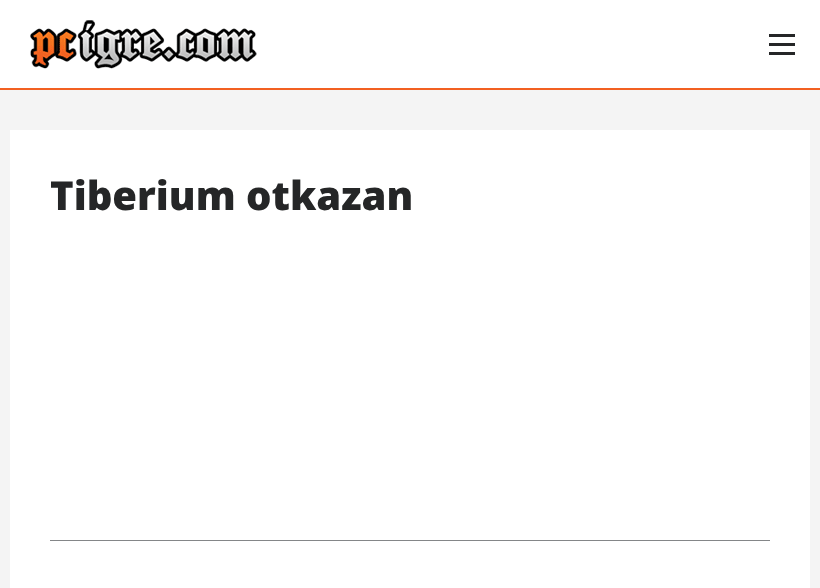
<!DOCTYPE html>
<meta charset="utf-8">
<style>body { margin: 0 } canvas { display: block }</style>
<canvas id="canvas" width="820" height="588"></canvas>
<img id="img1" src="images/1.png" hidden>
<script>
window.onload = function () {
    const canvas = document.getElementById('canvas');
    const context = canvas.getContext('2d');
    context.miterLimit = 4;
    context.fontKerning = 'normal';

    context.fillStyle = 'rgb(244, 244, 244)';
    context.fillRect(0, 0, 820, 588);
    context.fillStyle = 'rgb(255, 255, 255)';
    context.fillRect(0, 0, 820, 88);
    context.fillStyle = 'rgb(242, 96, 33)';
    context.fillRect(0, 88, 820, 2);
    context.drawImage(document.getElementById('img1'), 30, 20, 227, 49);
    context.fillStyle = 'rgb(37, 38, 39)';
    context.fillRect(769, 34, 26, 3);
    context.fillRect(769, 43, 26, 3);
    context.fillRect(769, 52, 26, 3);
    context.fillStyle = 'rgb(255, 255, 255)';
    context.fillRect(10, 130, 800, 458);
    context.fillStyle = 'rgb(132, 134, 136)';
    context.fillRect(50, 540, 720, 1);
    context.font = '800 40px Open Sans';
    context.fillStyle = 'rgb(37, 38, 39)';
    context.fillText('Tiberium otkazan', 50, 210);
};
</script>
